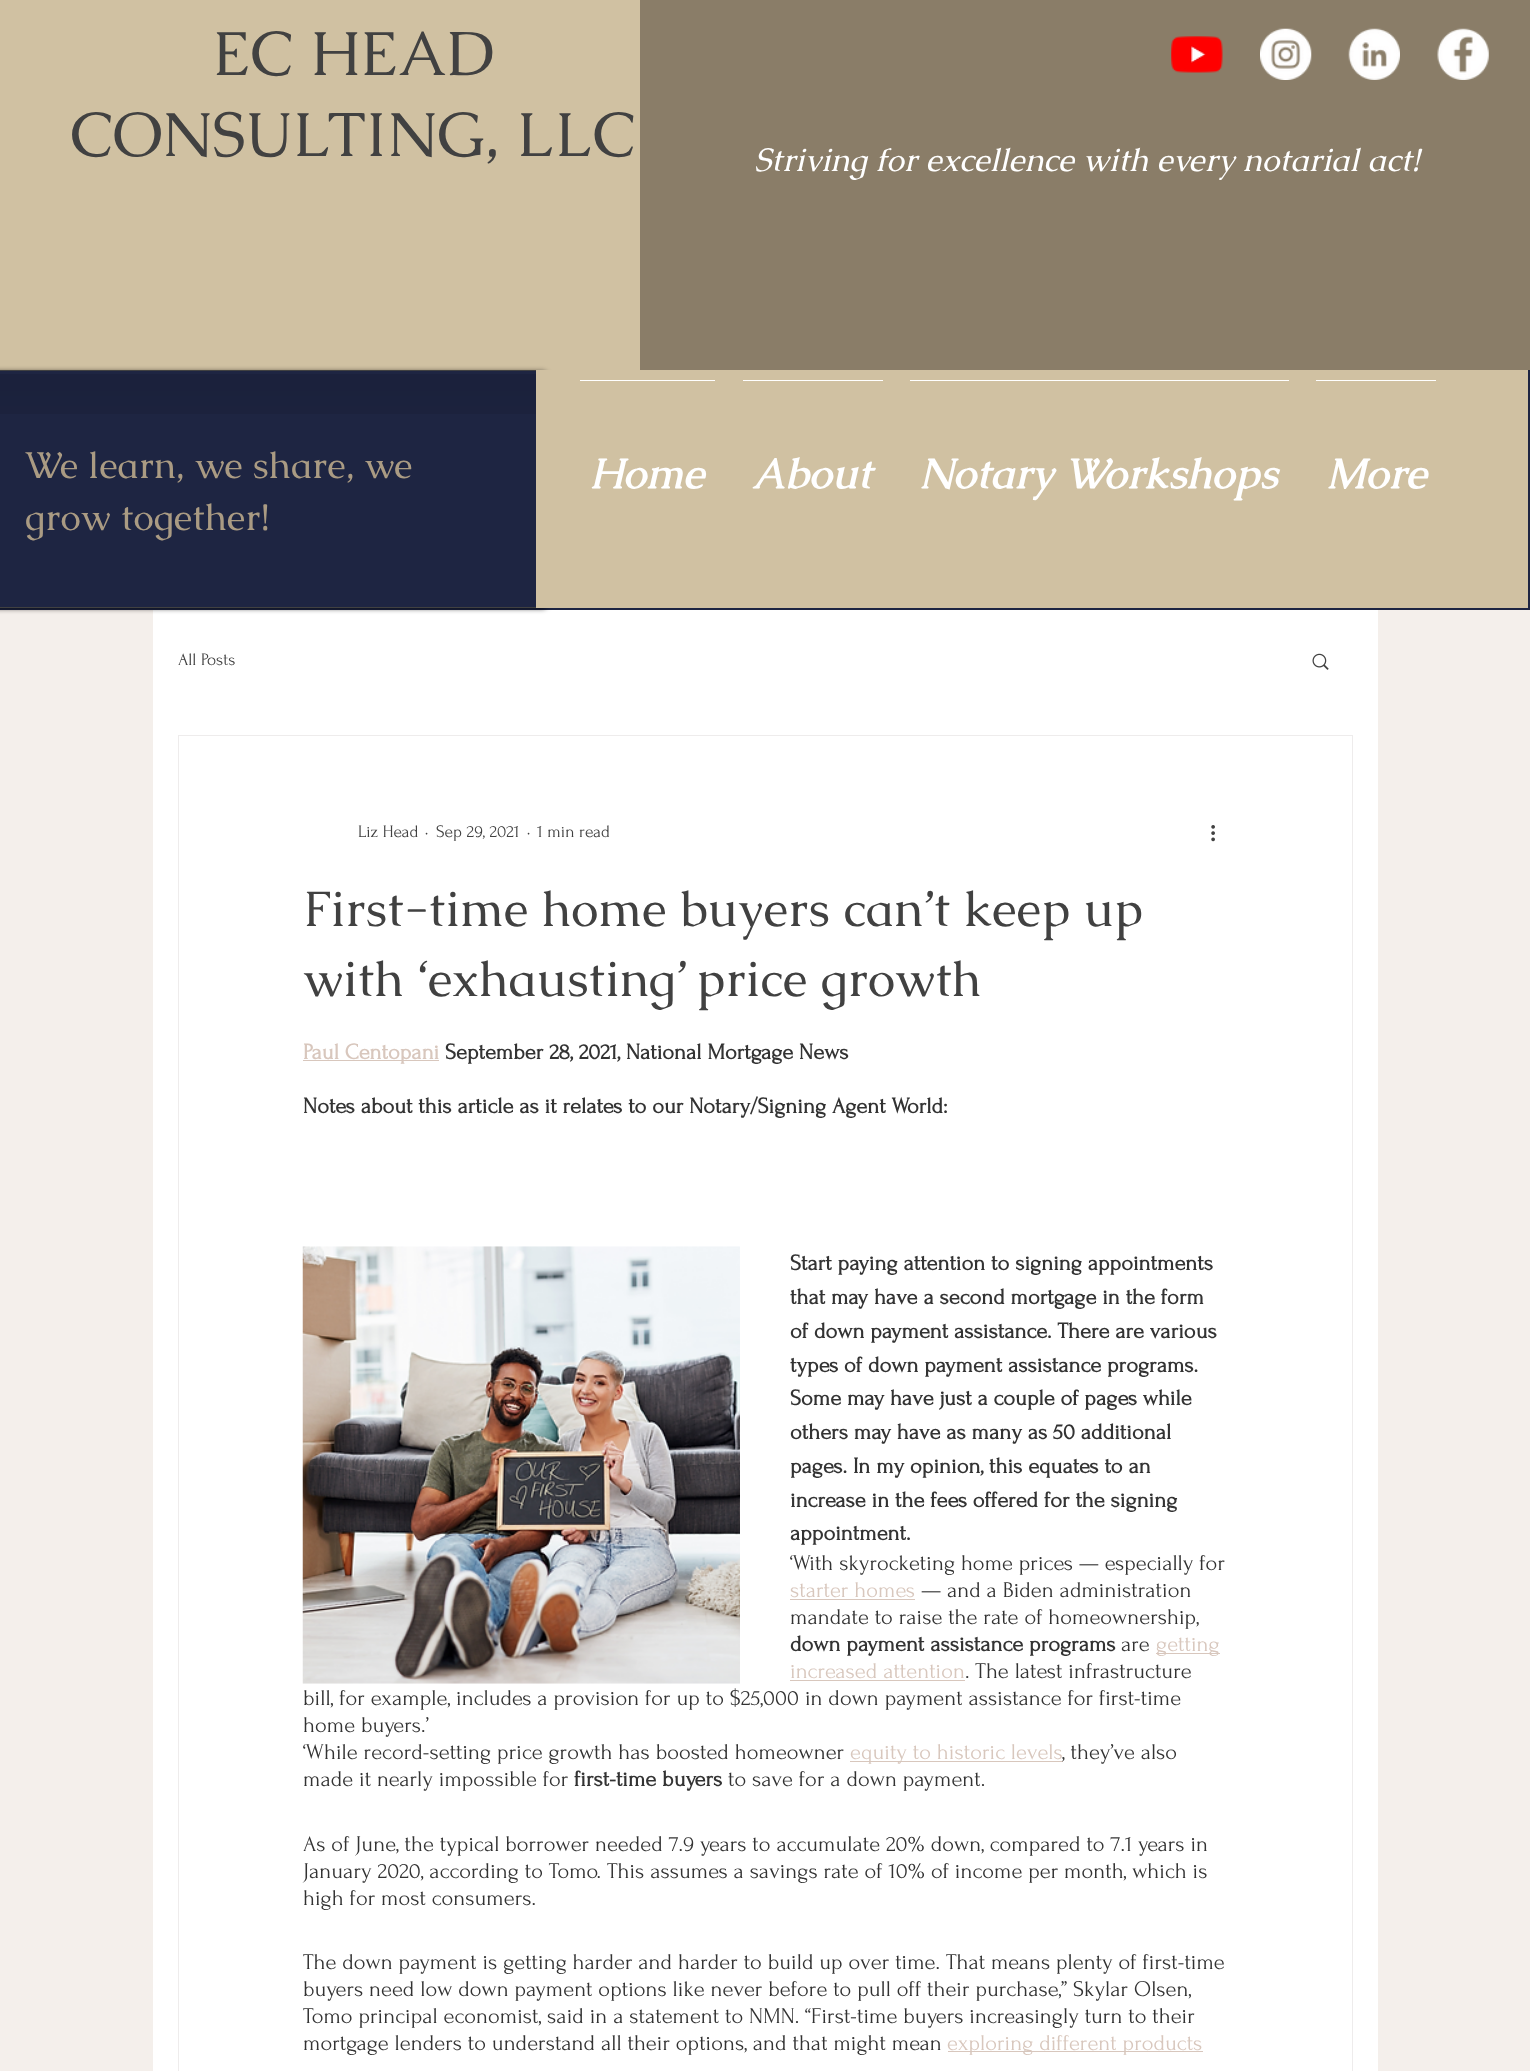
<!DOCTYPE html>
<meta charset="utf-8">
<style>body { margin: 0 } canvas { display: block }</style>
<canvas id="canvas" width="1530" height="2071"></canvas>
<img id="img1" src="images/1.png" hidden>
<img id="img2" src="images/2.png" hidden>
<img id="img3" src="images/3.png" hidden>
<img id="img4" src="images/4.png" hidden>
<img id="img5" src="images/5.png" hidden>
<img id="img6" src="images/6.png" hidden>
<img id="img7" src="images/7.png" hidden>
<img id="img8" src="images/8.png" hidden>
<script>
window.onload = function () {
    const canvas = document.getElementById('canvas');
    const context = canvas.getContext('2d');
    context.miterLimit = 4;
    context.fontKerning = 'normal';

    context.fillStyle = 'rgb(244, 239, 235)';
    context.fillRect(0, 0, 1530, 2071);
    context.fillStyle = 'rgb(208, 193, 162)';
    context.fillRect(0, 0, 640, 370);
    context.fillStyle = 'rgb(138, 125, 104)';
    context.fillRect(640, 0, 890, 370);
    context.drawImage(document.getElementById('img1'), 1171, 36, 52, 37);
    context.drawImage(document.getElementById('img2'), 1260, 28, 52, 52);
    context.drawImage(document.getElementById('img3'), 1348, 28, 52, 52);
    context.drawImage(document.getElementById('img4'), 1437, 28, 52, 52);
    context.fillStyle = 'rgb(30, 37, 66)';
    context.fillRect(0, 370, 1530, 240);
    context.fillStyle = 'rgb(255, 255, 255)';
    context.fillRect(153, 610, 1225, 1461);
    context.fillStyle = 'rgba(0, 0, 0, 0.6)';
    context.filter = 'blur(2.5px)';
    context.beginPath();
    context.roundRect(-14, 371, 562, 238, 6);
    context.fill();
    context.filter = 'none';
    context.fillStyle = 'rgb(30, 37, 66)';
    context.fillRect(0, 371, 536, 236);
    context.drawImage(document.getElementById('img5'), 0, 374, 536, 40);
    context.strokeStyle = 'rgb(65, 65, 65)';
    context.strokeRect(-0.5, 370.5, 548, 237);
    context.fillStyle = 'rgb(208, 193, 162)';
    context.fillRect(536, 370, 992, 238);
    context.fillStyle = 'rgb(255, 255, 255)';
    context.fillRect(580, 380, 135, 1);
    context.fillRect(743, 380, 140, 1);
    context.fillRect(910, 380, 379, 1);
    context.fillRect(1316, 380, 120, 1);
    context.drawImage(document.getElementById('img6'), 1312, 653, 17, 17);
    context.strokeStyle = 'rgb(238, 236, 236)';
    context.strokeRect(178.5, 735.5, 1174, 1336);
    context.drawImage(document.getElementById('img7'), 1211, 825, 4, 17);
    context.fillStyle = 'rgb(216, 199, 189)';
    context.fillRect(303, 1060, 136, 1);
    context.drawImage(document.getElementById('img8'), 302, 1246, 438, 438);
    context.fillRect(790, 1599, 125, 1);
    context.fillRect(1156, 1653, 64, 1);
    context.fillRect(790, 1680, 175, 1);
    context.fillRect(850, 1761, 213, 1);
    context.fillRect(948, 2051, 255, 1);
    context.font = '62.5px Caudex';
    context.fillStyle = 'rgb(65, 65, 65)';
    context.fillText('EC HEAD', 212, 75);
    context.fillText('CONSULTING, LLC', 70, 156);
    context.font = 'italic 32.5px Caudex';
    context.fillStyle = 'rgb(255, 255, 255)';
    context.fillText('Striving for excellence with every notarial act!', 754, 171);
    context.font = '37.5px Caudex';
    context.fillStyle = 'rgb(170, 155, 131)';
    context.fillText('We learn, we share, we', 25, 478);
    context.fillText('grow together!', 25, 530);
    context.font = 'italic bold 42.5px Caudex';
    context.fillStyle = 'rgb(255, 255, 255)';
    context.fillText('Home', 589, 488);
    context.fillText('About', 752, 488);
    context.fillText('Notary Workshops', 919, 488);
    context.fillText('More', 1326, 488);
    context.font = '17.5px Forum';
    context.fillStyle = 'rgb(65, 65, 65)';
    context.fillText('All Posts', 178, 665);
    context.fillText('Liz Head', 358, 837);
    context.fillText('·', 425, 837);
    context.fillText('Sep 29, 2021', 436, 837);
    context.fillText('·', 527, 837);
    context.fillText('1 min read', 537, 837);
    context.font = '50px Caudex';
    context.fillText('First-time home buyers can’t keep up', 303, 926);
    context.fillText('with ‘exhausting’ price growth', 303, 996);
    context.font = 'bold 22.5px Forum';
    context.fillStyle = 'rgb(216, 199, 189)';
    context.fillText('Paul Centopani', 303, 1059);
    context.fillStyle = 'rgb(51, 51, 51)';
    context.fillText('September 28, 2021, National Mortgage News', 445, 1059);
    context.fillText('Notes about this article as it relates to our Notary/Signing Agent World:', 303, 1113);
    context.fillText('Start paying attention to signing appointments', 790, 1270);
    context.fillText('that may have a second mortgage in the form', 790, 1304);
    context.fillText('of down payment assistance. There are various', 790, 1338);
    context.fillText('types of down payment assistance programs.', 790, 1372);
    context.fillText('Some may have just a couple of pages while', 790, 1405);
    context.fillText('others may have as many as 50 additional', 790, 1439);
    context.fillText('pages. In my opinion, this equates to an', 790, 1473);
    context.fillText('increase in the fees offered for the signing', 790, 1507);
    context.fillText('appointment.', 790, 1540);
    context.font = '22.5px Forum';
    context.fillText('‘With skyrocketing home prices — especially for', 790, 1570);
    context.fillStyle = 'rgb(216, 199, 189)';
    context.fillText('starter homes', 790, 1597);
    context.fillStyle = 'rgb(51, 51, 51)';
    context.fillText('— and a Biden administration', 921, 1597);
    context.fillText('mandate to raise the rate of homeownership,', 790, 1624);
    context.font = 'bold 22.5px Forum';
    context.fillText('down payment assistance programs', 790, 1651);
    context.font = '22.5px Forum';
    context.fillText('are', 1121, 1651);
    context.fillStyle = 'rgb(216, 199, 189)';
    context.fillText('getting', 1156, 1651);
    context.fillText('increased attention', 790, 1678);
    context.fillStyle = 'rgb(51, 51, 51)';
    context.fillText('. The latest infrastructure', 965, 1678);
    context.fillText('bill, for example, includes a provision for up to $25,000 in down payment assistance for first-time', 303, 1705);
    context.fillText('home buyers.’', 303, 1732);
    context.fillText('‘While record-setting price growth has boosted homeowner', 303, 1759);
    context.fillStyle = 'rgb(216, 199, 189)';
    context.fillText('equity to historic levels', 850, 1759);
    context.fillStyle = 'rgb(51, 51, 51)';
    context.fillText(', they’ve also', 1062, 1759);
    context.fillText('made it nearly impossible for', 303, 1786);
    context.font = 'bold 22.5px Forum';
    context.fillText('first-time buyers', 574, 1786);
    context.font = '22.5px Forum';
    context.fillText('to save for a down payment.', 728, 1786);
    context.fillText('As of June, the typical borrower needed 7.9 years to accumulate 20% down, compared to 7.1 years in', 303, 1851);
    context.fillText('January 2020, according to Tomo. This assumes a savings rate of 10% of income per month, which is', 303, 1878);
    context.fillText('high for most consumers.', 303, 1905);
    context.fillText('The down payment is getting harder and harder to build up over time. That means plenty of first-time', 303, 1969);
    context.fillText('buyers need low down payment options like never before to pull off their purchase,” Skylar Olsen,', 303, 1996);
    context.fillText('Tomo principal economist, said in a statement to NMN. “First-time buyers increasingly turn to their', 303, 2023);
    context.fillText('mortgage lenders to understand all their options, and that might mean', 303, 2050);
    context.fillStyle = 'rgb(216, 199, 189)';
    context.fillText('exploring different products', 947, 2050);
};
</script>
